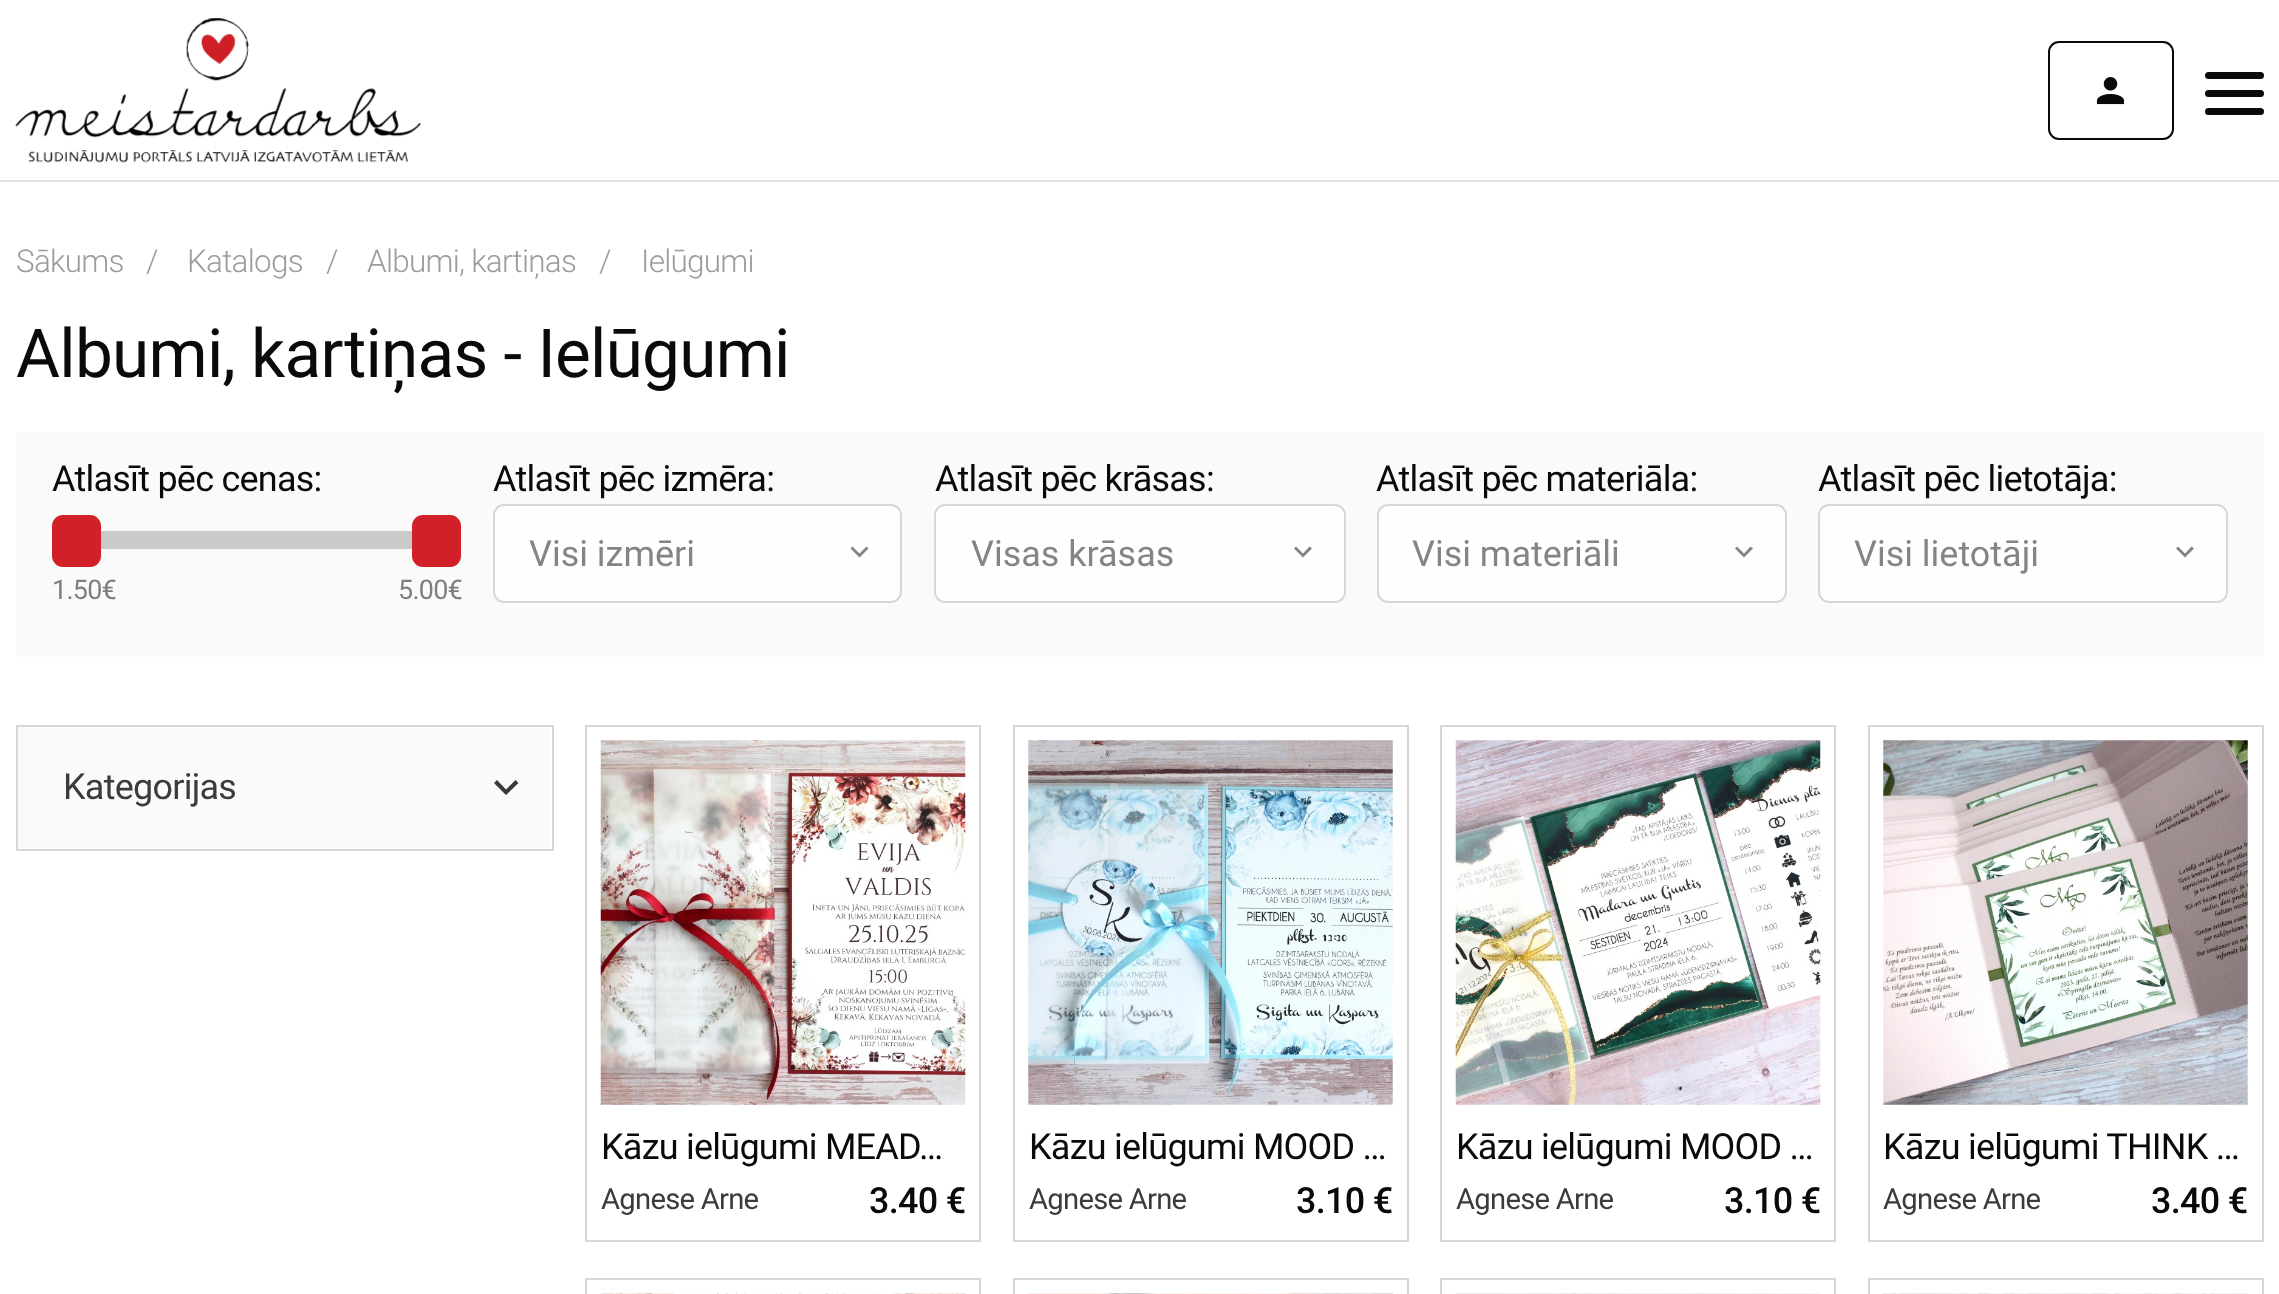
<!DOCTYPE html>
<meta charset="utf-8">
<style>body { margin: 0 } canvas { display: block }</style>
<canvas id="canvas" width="2279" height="1294"></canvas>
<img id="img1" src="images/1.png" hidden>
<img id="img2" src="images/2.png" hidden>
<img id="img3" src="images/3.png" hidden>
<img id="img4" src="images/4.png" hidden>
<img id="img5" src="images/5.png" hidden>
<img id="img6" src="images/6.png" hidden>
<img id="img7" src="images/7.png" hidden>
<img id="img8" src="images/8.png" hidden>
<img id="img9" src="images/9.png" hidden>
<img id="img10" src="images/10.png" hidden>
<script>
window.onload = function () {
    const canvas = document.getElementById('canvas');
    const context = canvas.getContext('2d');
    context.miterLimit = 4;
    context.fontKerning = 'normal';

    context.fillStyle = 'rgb(255, 255, 255)';
    context.fillRect(0, 0, 2279, 1294);
    context.fillStyle = 'rgb(227, 227, 227)';
    context.fillRect(0, 180, 2279, 2);
    context.drawImage(document.getElementById('img1'), 15, 18, 406, 145);
    context.beginPath();
    context.roundRect(2049, 42, 124, 97, 10);
    context.strokeStyle = 'rgb(10, 10, 10)';
    context.lineWidth = 2;
    context.stroke();
    context.drawImage(document.getElementById('img2'), 2096, 77, 29, 28);
    context.fillStyle = 'rgb(10, 10, 10)';
    context.beginPath();
    context.roundRect(2205, 90, 59, 7, 3.5);
    context.fill();
    context.beginPath();
    context.roundRect(2205, 72, 59, 7, 3.5);
    context.fill();
    context.beginPath();
    context.roundRect(2205, 108, 59, 7, 3.5);
    context.fill();
    context.fillStyle = 'rgb(250, 250, 250)';
    context.fillRect(16, 432, 2248, 225);
    context.fillStyle = 'rgb(209, 32, 40)';
    context.beginPath();
    context.roundRect(52, 515, 49, 52, 11);
    context.fill();
    context.fillStyle = 'rgb(202, 202, 202)';
    context.fillRect(101, 531, 311, 18);
    context.fillStyle = 'rgb(209, 32, 40)';
    context.beginPath();
    context.roundRect(412, 515, 49, 52, 11);
    context.fill();
    context.fillStyle = 'rgb(254, 254, 254)';
    context.beginPath();
    context.roundRect(494, 505, 407, 97, 10);
    context.fill();
    context.strokeStyle = 'rgb(215, 215, 215)';
    context.stroke();
    context.fillStyle = 'rgb(132, 132, 132)';
    context.beginPath();
    context.moveTo(852.5, 546.5);
    context.lineTo(859.5, 553.5);
    context.lineTo(866.5, 546.5);
    context.lineTo(868.5, 548.5);
    context.lineTo(859.5, 557.5);
    context.lineTo(850.5, 548.5);
    context.closePath();
    context.fill();
    context.fillStyle = 'rgb(254, 254, 254)';
    context.beginPath();
    context.roundRect(935, 505, 410, 97, 10);
    context.fill();
    context.stroke();
    context.fillStyle = 'rgb(132, 132, 132)';
    context.beginPath();
    context.moveTo(1296, 546.5);
    context.lineTo(1303, 553.5);
    context.lineTo(1309.5, 546.5);
    context.lineTo(1312, 548.5);
    context.lineTo(1303, 557.5);
    context.lineTo(1294, 548.5);
    context.closePath();
    context.fill();
    context.fillStyle = 'rgb(254, 254, 254)';
    context.beginPath();
    context.roundRect(1378, 505, 408, 97, 10);
    context.fill();
    context.stroke();
    context.fillStyle = 'rgb(132, 132, 132)';
    context.beginPath();
    context.moveTo(1737, 546.5);
    context.lineTo(1744, 553.5);
    context.lineTo(1750.5, 546.5);
    context.lineTo(1753, 548.5);
    context.lineTo(1744, 557.5);
    context.lineTo(1735, 548.5);
    context.closePath();
    context.fill();
    context.fillStyle = 'rgb(254, 254, 254)';
    context.beginPath();
    context.roundRect(1819, 505, 408, 97, 10);
    context.fill();
    context.stroke();
    context.fillStyle = 'rgb(132, 132, 132)';
    context.beginPath();
    context.moveTo(2178, 546.5);
    context.lineTo(2185, 553.5);
    context.lineTo(2191.5, 546.5);
    context.lineTo(2194, 548.5);
    context.lineTo(2185, 557.5);
    context.lineTo(2176, 548.5);
    context.closePath();
    context.fill();
    context.strokeRect(17, 726, 536, 124);
    context.fillStyle = 'rgb(250, 250, 250)';
    context.fillRect(18, 727, 533, 121);
    context.fillStyle = 'rgb(57, 57, 57)';
    context.beginPath();
    context.moveTo(497, 780);
    context.lineTo(506, 789.5);
    context.lineTo(515.5, 780);
    context.lineTo(518.5, 783);
    context.lineTo(506, 795);
    context.lineTo(494, 783);
    context.closePath();
    context.fill();
    context.strokeRect(586, 726, 394, 515);
    context.drawImage(document.getElementById('img3'), 600, 740, 366, 365);
    context.strokeRect(1014, 726, 394, 515);
    context.drawImage(document.getElementById('img4'), 1028, 740, 365, 365);
    context.strokeRect(1441, 726, 394, 515);
    context.drawImage(document.getElementById('img5'), 1455, 740, 366, 365);
    context.strokeRect(1869, 726, 394, 515);
    context.drawImage(document.getElementById('img6'), 1883, 740, 365, 365);
    context.strokeRect(586, 1279, 394, 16);
    context.drawImage(document.getElementById('img7'), 600, 1293, 366, 1);
    context.strokeRect(1014, 1279, 394, 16);
    context.drawImage(document.getElementById('img8'), 1028, 1293, 365, 1);
    context.strokeRect(1441, 1279, 394, 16);
    context.drawImage(document.getElementById('img9'), 1455, 1293, 365, 1);
    context.strokeRect(1869, 1279, 394, 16);
    context.drawImage(document.getElementById('img10'), 1883, 1293, 365, 1);
    context.letterSpacing = '-0.75px';
    context.font = '300 31.5px Roboto';
    context.fillStyle = 'rgb(156, 156, 156)';
    context.fillText('Sākums', 16, 272);
    context.fillText('/', 146, 272);
    context.fillText('Katalogs', 187, 272);
    context.fillText('/', 326, 272);
    context.fillText('Albumi, kartiņas', 367, 272);
    context.fillText('/', 599, 272);
    context.fillText('Ielūgumi', 641, 272);
    context.font = '67.5px Roboto';
    context.fillStyle = 'rgb(10, 10, 10)';
    context.fillText('Albumi, kartiņas - Ielūgumi', 16, 377);
    context.font = '36px Roboto';
    context.fillText('Atlasīt pēc cenas:', 52, 491);
    context.font = '27px Roboto';
    context.fillStyle = 'rgb(126, 126, 126)';
    context.fillText('1.50€', 52, 599);
    context.fillText('5.00€', 398, 599);
    context.font = '36px Roboto';
    context.fillStyle = 'rgb(10, 10, 10)';
    context.fillText('Atlasīt pēc izmēra:', 493, 491);
    context.letterSpacing = '0px';
    context.fillStyle = 'rgb(132, 132, 132)';
    context.fillText('Visi izmēri', 529, 566);
    context.letterSpacing = '-0.75px';
    context.fillStyle = 'rgb(10, 10, 10)';
    context.fillText('Atlasīt pēc krāsas:', 935, 491);
    context.letterSpacing = '0px';
    context.fillStyle = 'rgb(132, 132, 132)';
    context.fillText('Visas krāsas', 971, 566);
    context.letterSpacing = '-0.75px';
    context.fillStyle = 'rgb(10, 10, 10)';
    context.fillText('Atlasīt pēc materiāla:', 1376, 491);
    context.letterSpacing = '0px';
    context.fillStyle = 'rgb(132, 132, 132)';
    context.fillText('Visi materiāli', 1412, 566);
    context.letterSpacing = '-0.75px';
    context.fillStyle = 'rgb(10, 10, 10)';
    context.fillText('Atlasīt pēc lietotāja:', 1818, 491);
    context.letterSpacing = '0px';
    context.fillStyle = 'rgb(132, 132, 132)';
    context.fillText('Visi lietotāji', 1854, 566);
    context.letterSpacing = '-0.75px';
    context.fillStyle = 'rgb(59, 59, 59)';
    context.fillText('Kategorijas', 63, 799);
    context.fillStyle = 'rgb(10, 10, 10)';
    context.fillText('Kāzu ielūgumi MEAD…', 601, 1159);
    context.font = '29.25px Roboto';
    context.fillStyle = 'rgb(59, 59, 59)';
    context.fillText('Agnese Arne', 601, 1209);
    context.font = '500 36px Roboto';
    context.fillStyle = 'rgb(10, 10, 10)';
    context.fillText('3.40 €', 869, 1213);
    context.font = '36px Roboto';
    context.fillText('Kāzu ielūgumi MOOD …', 1029, 1159);
    context.font = '29.25px Roboto';
    context.fillStyle = 'rgb(59, 59, 59)';
    context.fillText('Agnese Arne', 1029, 1209);
    context.font = '500 36px Roboto';
    context.fillStyle = 'rgb(10, 10, 10)';
    context.fillText('3.10 €', 1296, 1213);
    context.font = '36px Roboto';
    context.fillText('Kāzu ielūgumi MOOD …', 1456, 1159);
    context.font = '29.25px Roboto';
    context.fillStyle = 'rgb(59, 59, 59)';
    context.fillText('Agnese Arne', 1456, 1209);
    context.font = '500 36px Roboto';
    context.fillStyle = 'rgb(10, 10, 10)';
    context.fillText('3.10 €', 1724, 1213);
    context.font = '36px Roboto';
    context.fillText('Kāzu ielūgumi THINK …', 1883, 1159);
    context.font = '29.25px Roboto';
    context.fillStyle = 'rgb(59, 59, 59)';
    context.fillText('Agnese Arne', 1883, 1209);
    context.font = '500 36px Roboto';
    context.fillStyle = 'rgb(10, 10, 10)';
    context.fillText('3.40 €', 2151, 1213);
};
</script>
